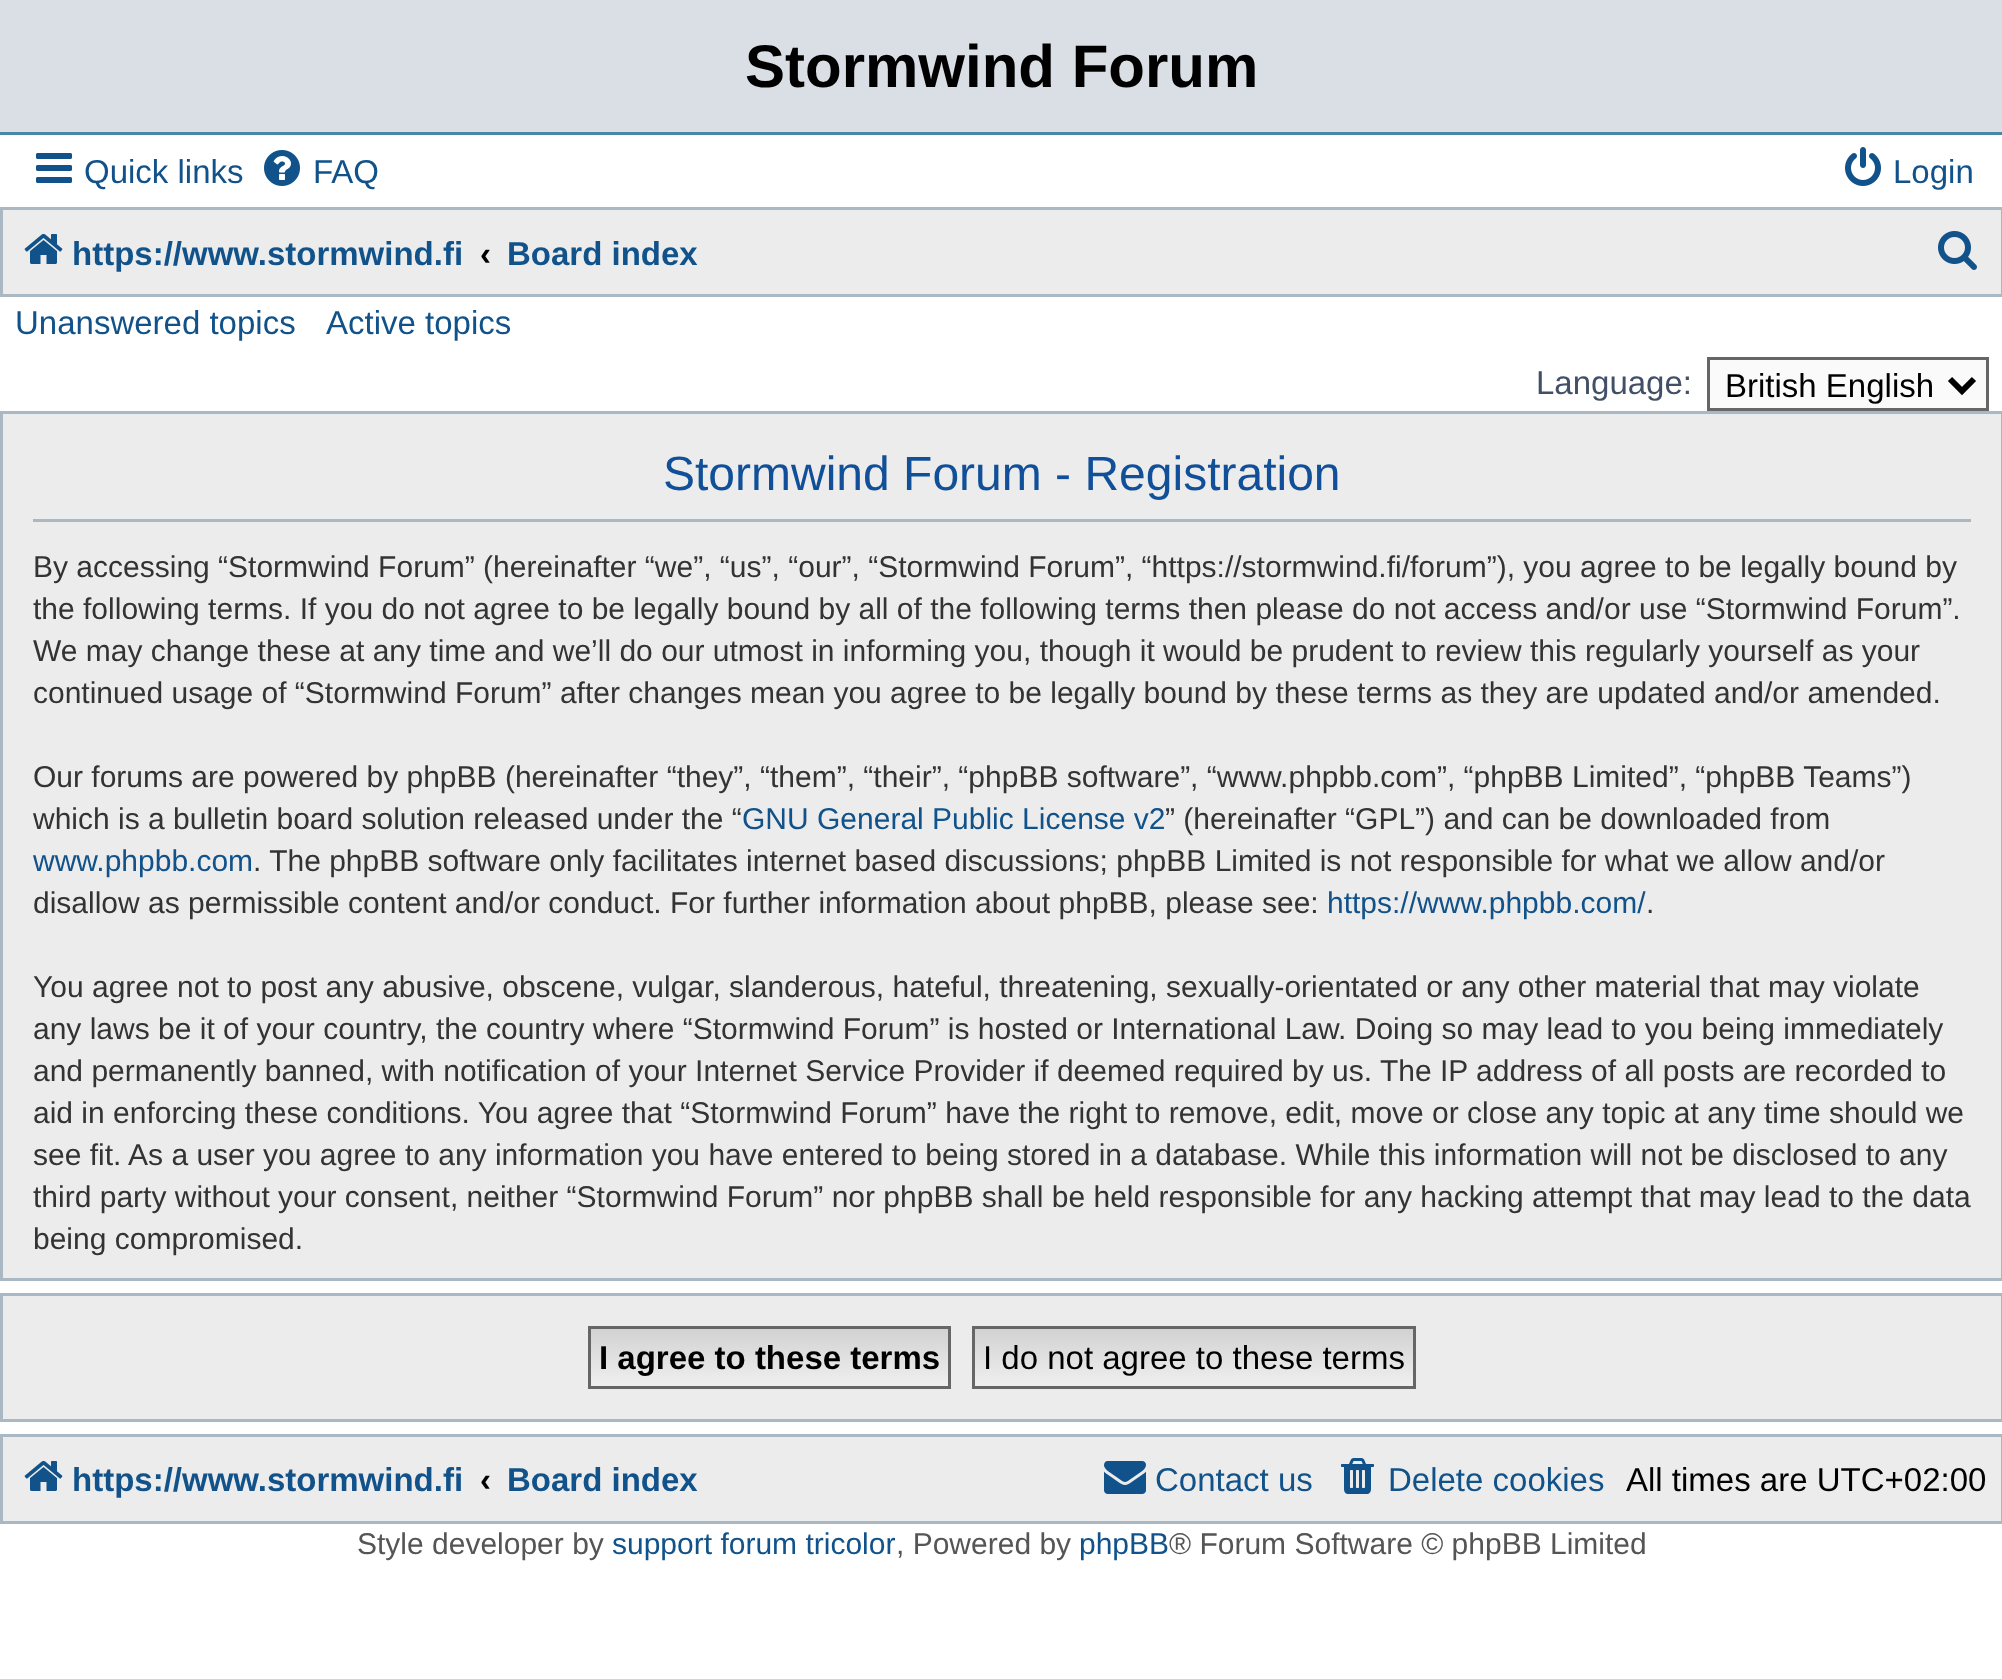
<!DOCTYPE html>
<meta charset="utf-8">
<style>body { margin: 0 } canvas { display: block }</style>
<canvas id="canvas" width="2002" height="1679"></canvas>
<img id="img1" src="images/1.png" hidden>
<img id="img2" src="images/2.png" hidden>
<img id="img3" src="images/3.png" hidden>
<img id="img4" src="images/4.png" hidden>
<img id="img5" src="images/5.png" hidden>
<img id="img6" src="images/6.png" hidden>
<img id="img7" src="images/7.png" hidden>
<script>
window.onload = function () {
    const canvas = document.getElementById('canvas');
    const context = canvas.getContext('2d');
    context.miterLimit = 4;
    context.fontKerning = 'normal';
    let gradient;

    context.fillStyle = 'rgb(255, 255, 255)';
    context.fillRect(0, 0, 2002, 1679);
    context.fillStyle = 'rgb(217, 223, 228)';
    context.fillRect(0, 0, 2002, 132);
    context.fillStyle = 'rgb(71, 135, 167)';
    context.fillRect(0, 132, 2002, 3);
    context.drawImage(document.getElementById('img1'), 36, 153, 36, 30);
    context.drawImage(document.getElementById('img2'), 264, 150, 36, 36);
    context.drawImage(document.getElementById('img3'), 1845, 147, 36, 39);
    context.fillStyle = 'rgb(236, 236, 236)';
    context.beginPath();
    context.rect(1.5, 208.5, 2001, 87);
    context.fill();
    context.strokeStyle = 'rgb(169, 184, 194)';
    context.lineWidth = 3;
    context.stroke();
    context.drawImage(document.getElementById('img4'), 24, 233, 39, 31);
    context.drawImage(document.getElementById('img5'), 1938, 231, 39, 39);
    context.fillStyle = 'rgb(250, 250, 250)';
    context.beginPath();
    context.rect(1708.5, 358.5, 279, 51);
    context.fill();
    context.strokeStyle = 'rgb(102, 102, 102)';
    context.stroke();
    context.beginPath();
    context.moveTo(1950, 379);
    context.lineTo(1962, 391);
    context.lineTo(1974, 379);
    context.strokeStyle = 'rgb(0, 0, 0)';
    context.lineWidth = 6;
    context.stroke();
    context.fillStyle = 'rgb(236, 236, 236)';
    context.beginPath();
    context.rect(1.5, 412.5, 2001, 867);
    context.fill();
    context.strokeStyle = 'rgb(169, 184, 194)';
    context.lineWidth = 3;
    context.stroke();
    context.fillStyle = 'rgb(169, 184, 194)';
    context.fillRect(33, 519, 1938, 3);
    context.fillStyle = 'rgb(236, 236, 236)';
    context.beginPath();
    context.rect(1.5, 1294.5, 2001, 126);
    context.fill();
    context.stroke();
    gradient = context.createLinearGradient(770, 1329, 770, 1386);
    gradient.addColorStop(0, 'rgb(210, 210, 210)');
    gradient.addColorStop(1, 'rgb(239, 239, 239)');
    context.fillStyle = gradient;
    context.fillRect(591, 1329, 357, 57);
    context.strokeStyle = 'rgb(102, 102, 102)';
    context.strokeRect(589.5, 1327.5, 360, 60);
    gradient = context.createLinearGradient(1194, 1329, 1194, 1386);
    gradient.addColorStop(0, 'rgb(210, 210, 210)');
    gradient.addColorStop(1, 'rgb(239, 239, 239)');
    context.fillStyle = gradient;
    context.fillRect(975, 1329, 438, 57);
    context.strokeRect(973.5, 1327.5, 441, 60);
    context.fillStyle = 'rgb(236, 236, 236)';
    context.beginPath();
    context.rect(1.5, 1435.5, 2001, 87);
    context.fill();
    context.strokeStyle = 'rgb(169, 184, 194)';
    context.stroke();
    context.drawImage(document.getElementById('img4'), 24, 1460, 39, 31);
    context.drawImage(document.getElementById('img6'), 1104, 1461, 42, 33);
    context.drawImage(document.getElementById('img7'), 1341, 1458, 33, 36);
    context.font = 'bold 60px Liberation Sans';
    context.fillStyle = 'rgb(0, 0, 0)';
    context.fillText('Stormwind Forum', 745, 87);
    context.font = '33px Liberation Sans';
    context.fillStyle = 'rgb(16, 82, 137)';
    context.fillText('Quick links', 84, 183);
    context.fillText('FAQ', 313, 183);
    context.fillText('Login', 1893, 183);
    context.font = 'bold 33px Liberation Sans';
    context.fillText('https://www.stormwind.fi', 72, 265);
    context.fillStyle = 'rgb(0, 0, 0)';
    context.fillText('‹', 480, 265);
    context.fillStyle = 'rgb(16, 82, 137)';
    context.fillText('Board index', 507, 265);
    context.font = '33px Liberation Sans';
    context.fillText('Unanswered topics', 15, 334);
    context.fillText('Active topics', 326, 334);
    context.fillStyle = 'rgb(66, 80, 103)';
    context.fillText('Language:', 1536, 394);
    context.fillStyle = 'rgb(0, 0, 0)';
    context.fillText('British English', 1725, 397);
    context.font = '48px Liberation Sans';
    context.fillStyle = 'rgb(17, 80, 152)';
    context.fillText('Stormwind Forum - Registration', 663, 490);
    context.font = '30px Liberation Sans';
    context.fillStyle = 'rgb(51, 51, 51)';
    context.fillText('By accessing “Stormwind Forum” (hereinafter “we”, “us”, “our”, “Stormwind Forum”, “https://stormwind.fi/forum”), you agree to be legally bound by', 33, 577);
    context.fillText('the following terms. If you do not agree to be legally bound by all of the following terms then please do not access and/or use “Stormwind Forum”.', 33, 619);
    context.fillText('We may change these at any time and we’ll do our utmost in informing you, though it would be prudent to review this regularly yourself as your', 33, 661);
    context.fillText('continued usage of “Stormwind Forum” after changes mean you agree to be legally bound by these terms as they are updated and/or amended.', 33, 703);
    context.fillText('Our forums are powered by phpBB (hereinafter “they”, “them”, “their”, “phpBB software”, “www.phpbb.com”, “phpBB Limited”, “phpBB Teams”)', 33, 787);
    context.fillText('which is a bulletin board solution released under the “', 33, 829);
    context.fillStyle = 'rgb(16, 82, 137)';
    context.fillText('GNU General Public License v2', 742, 829);
    context.fillStyle = 'rgb(51, 51, 51)';
    context.fillText('” (hereinafter “GPL”) and can be downloaded from', 1165, 829);
    context.fillStyle = 'rgb(16, 82, 137)';
    context.fillText('www.phpbb.com', 33, 871);
    context.fillStyle = 'rgb(51, 51, 51)';
    context.fillText('. The phpBB software only facilitates internet based discussions; phpBB Limited is not responsible for what we allow and/or', 253, 871);
    context.fillText('disallow as permissible content and/or conduct. For further information about phpBB, please see:', 33, 913);
    context.fillStyle = 'rgb(16, 82, 137)';
    context.fillText('https://www.phpbb.com/', 1327, 913);
    context.fillStyle = 'rgb(51, 51, 51)';
    context.fillText('.', 1646, 913);
    context.fillText('You agree not to post any abusive, obscene, vulgar, slanderous, hateful, threatening, sexually-orientated or any other material that may violate', 33, 997);
    context.fillText('any laws be it of your country, the country where “Stormwind Forum” is hosted or International Law. Doing so may lead to you being immediately', 33, 1039);
    context.fillText('and permanently banned, with notification of your Internet Service Provider if deemed required by us. The IP address of all posts are recorded to', 33, 1081);
    context.fillText('aid in enforcing these conditions. You agree that “Stormwind Forum” have the right to remove, edit, move or close any topic at any time should we', 33, 1123);
    context.fillText('see fit. As a user you agree to any information you have entered to being stored in a database. While this information will not be disclosed to any', 33, 1165);
    context.fillText('third party without your consent, neither “Stormwind Forum” nor phpBB shall be held responsible for any hacking attempt that may lead to the data', 33, 1207);
    context.fillText('being compromised.', 33, 1249);
    context.font = 'bold 33px Liberation Sans';
    context.fillStyle = 'rgb(0, 0, 0)';
    context.fillText('I agree to these terms', 599, 1369);
    context.font = '33px Liberation Sans';
    context.fillText('I do not agree to these terms', 983, 1369);
    context.font = 'bold 33px Liberation Sans';
    context.fillStyle = 'rgb(16, 82, 137)';
    context.fillText('https://www.stormwind.fi', 72, 1491);
    context.fillStyle = 'rgb(0, 0, 0)';
    context.fillText('‹', 480, 1491);
    context.fillStyle = 'rgb(16, 82, 137)';
    context.fillText('Board index', 507, 1491);
    context.font = '33px Liberation Sans';
    context.fillText('Contact us', 1155, 1491);
    context.fillText('Delete cookies', 1388, 1491);
    context.fillStyle = 'rgb(0, 0, 0)';
    context.fillText('All times are UTC+02:00', 1626, 1491);
    context.font = '30px Liberation Sans';
    context.fillStyle = 'rgb(85, 85, 85)';
    context.fillText('Style developer by', 357, 1554);
    context.fillStyle = 'rgb(16, 82, 137)';
    context.fillText('support forum tricolor', 612, 1554);
    context.fillStyle = 'rgb(85, 85, 85)';
    context.fillText(', Powered by', 896, 1554);
    context.fillStyle = 'rgb(16, 82, 137)';
    context.fillText('phpBB', 1079, 1554);
    context.fillStyle = 'rgb(85, 85, 85)';
    context.fillText('® Forum Software © phpBB Limited', 1169, 1554);
};
</script>
